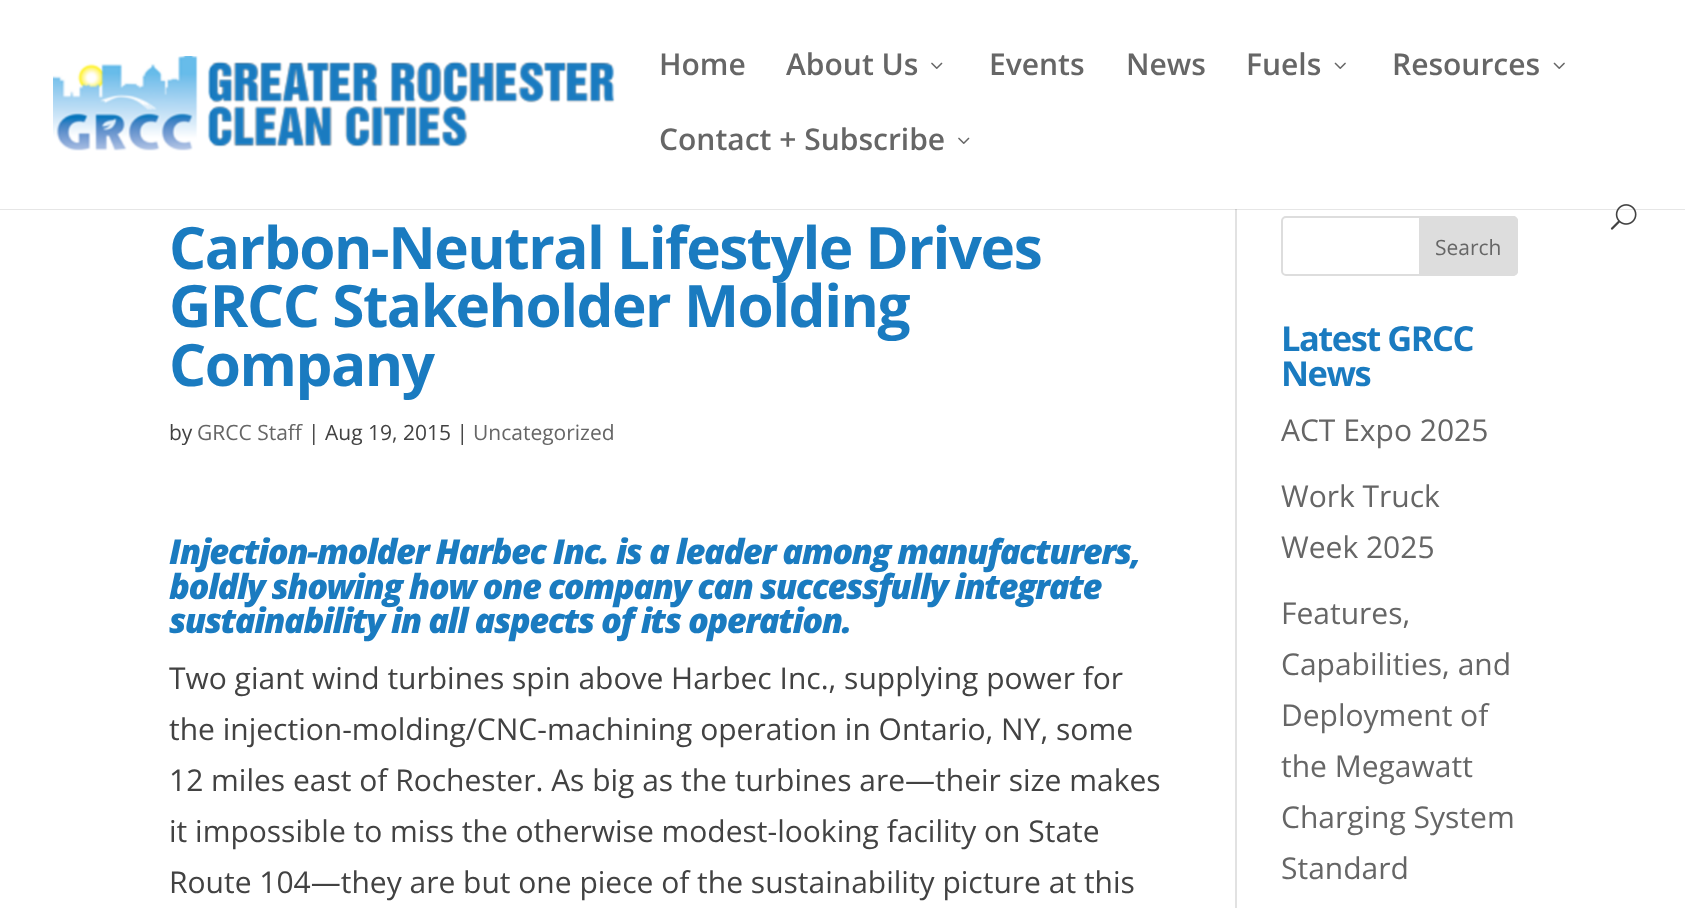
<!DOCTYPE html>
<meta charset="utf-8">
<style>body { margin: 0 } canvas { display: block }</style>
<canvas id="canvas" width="1685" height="908"></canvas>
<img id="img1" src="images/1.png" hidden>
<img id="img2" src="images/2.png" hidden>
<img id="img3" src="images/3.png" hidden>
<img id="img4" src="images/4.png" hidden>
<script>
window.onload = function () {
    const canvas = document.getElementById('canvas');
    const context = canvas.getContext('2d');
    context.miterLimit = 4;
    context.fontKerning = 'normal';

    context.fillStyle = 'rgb(255, 255, 255)';
    context.fillRect(0, 0, 1685, 908);
    context.fillStyle = 'rgb(230, 230, 230)';
    context.fillRect(0, 209, 1685, 1);
    context.drawImage(document.getElementById('img1'), 53, 56, 562, 95);
    context.drawImage(document.getElementById('img2'), 931, 62, 12, 7);
    context.drawImage(document.getElementById('img3'), 1334, 62, 12, 7);
    context.drawImage(document.getElementById('img3'), 1553, 62, 12, 7);
    context.drawImage(document.getElementById('img2'), 958, 137, 12, 7);
    context.drawImage(document.getElementById('img4'), 1610, 204, 27, 26);
    context.fillStyle = 'rgb(226, 226, 226)';
    context.fillRect(1235, 210, 2, 698);
    context.fillStyle = 'rgb(203, 203, 203)';
    context.fillRect(1235, 209, 2, 1);
    context.beginPath();
    context.roundRect(1282, 217, 235, 58, 4);
    context.strokeStyle = 'rgb(221, 221, 221)';
    context.lineWidth = 2;
    context.stroke();
    context.fillStyle = 'rgb(221, 221, 221)';
    context.beginPath();
    context.roundRect(1420, 217, 97, 58, [0, 4, 4, 0]);
    context.fill();
    context.stroke();
    context.font = '600 30px Open Sans';
    context.fillStyle = 'rgb(102, 102, 102)';
    context.fillText('Home', 659, 75);
    context.fillText('About Us', 786, 75);
    context.fillText('Events', 989, 75);
    context.fillText('News', 1126, 75);
    context.fillText('Fuels', 1246, 75);
    context.fillText('Resources', 1392, 75);
    context.fillText('Contact + Subscribe', 659, 150);
    context.letterSpacing = '-1.5px';
    context.font = 'bold 58.5px Open Sans';
    context.fillStyle = 'rgb(26, 123, 192)';
    context.fillText('Carbon-Neutral Lifestyle Drives', 169, 269);
    context.fillText('GRCC Stakeholder Molding', 169, 327);
    context.fillText('Company', 169, 386);
    context.letterSpacing = '0px';
    context.font = '21px Open Sans';
    context.fillStyle = 'rgb(66, 66, 66)';
    context.fillText('by', 169, 440);
    context.fillStyle = 'rgb(102, 102, 102)';
    context.fillText('GRCC Staff', 197, 440);
    context.fillStyle = 'rgb(66, 66, 66)';
    context.fillText('| Aug 19, 2015 |', 308, 440);
    context.fillStyle = 'rgb(102, 102, 102)';
    context.fillText('Uncategorized', 473, 440);
    context.letterSpacing = '-1.5px';
    context.font = 'italic 800 34.5px Open Sans';
    context.fillStyle = 'rgb(26, 123, 192)';
    context.fillText('Injection-molder Harbec Inc. is a leader among manufacturers,', 169, 564);
    context.fillText('boldly showing how one company can successfully integrate', 169, 599);
    context.fillText('sustainability in all aspects of its operation.', 169, 633);
    context.letterSpacing = '0px';
    context.font = '30px Open Sans';
    context.fillStyle = 'rgb(66, 66, 66)';
    context.fillText('Two giant wind turbines spin above Harbec Inc., supplying power for', 169, 689);
    context.fillText('the injection-molding/CNC-machining operation in Ontario, NY, some', 169, 740);
    context.fillText('12 miles east of Rochester. As big as the turbines are—their size makes', 169, 791);
    context.fillText('it impossible to miss the otherwise modest-looking facility on State', 169, 842);
    context.fillText('Route 104—they are but one piece of the sustainability picture at this', 169, 893);
    context.font = '21px Open Sans';
    context.fillStyle = 'rgb(102, 102, 102)';
    context.fillText('Search', 1435, 255);
    context.letterSpacing = '-1.5px';
    context.font = 'bold 34.5px Open Sans';
    context.fillStyle = 'rgb(26, 123, 192)';
    context.fillText('Latest GRCC', 1281, 351);
    context.fillText('News', 1281, 386);
    context.letterSpacing = '0px';
    context.font = '30px Open Sans';
    context.fillStyle = 'rgb(102, 102, 102)';
    context.fillText('ACT Expo 2025', 1281, 441);
    context.fillText('Work Truck', 1281, 507);
    context.fillText('Week 2025', 1281, 558);
    context.fillText('Features,', 1281, 624);
    context.fillText('Capabilities, and', 1281, 675);
    context.fillText('Deployment of', 1281, 726);
    context.fillText('the Megawatt', 1281, 777);
    context.fillText('Charging System', 1281, 828);
    context.fillText('Standard', 1281, 879);
};
</script>
